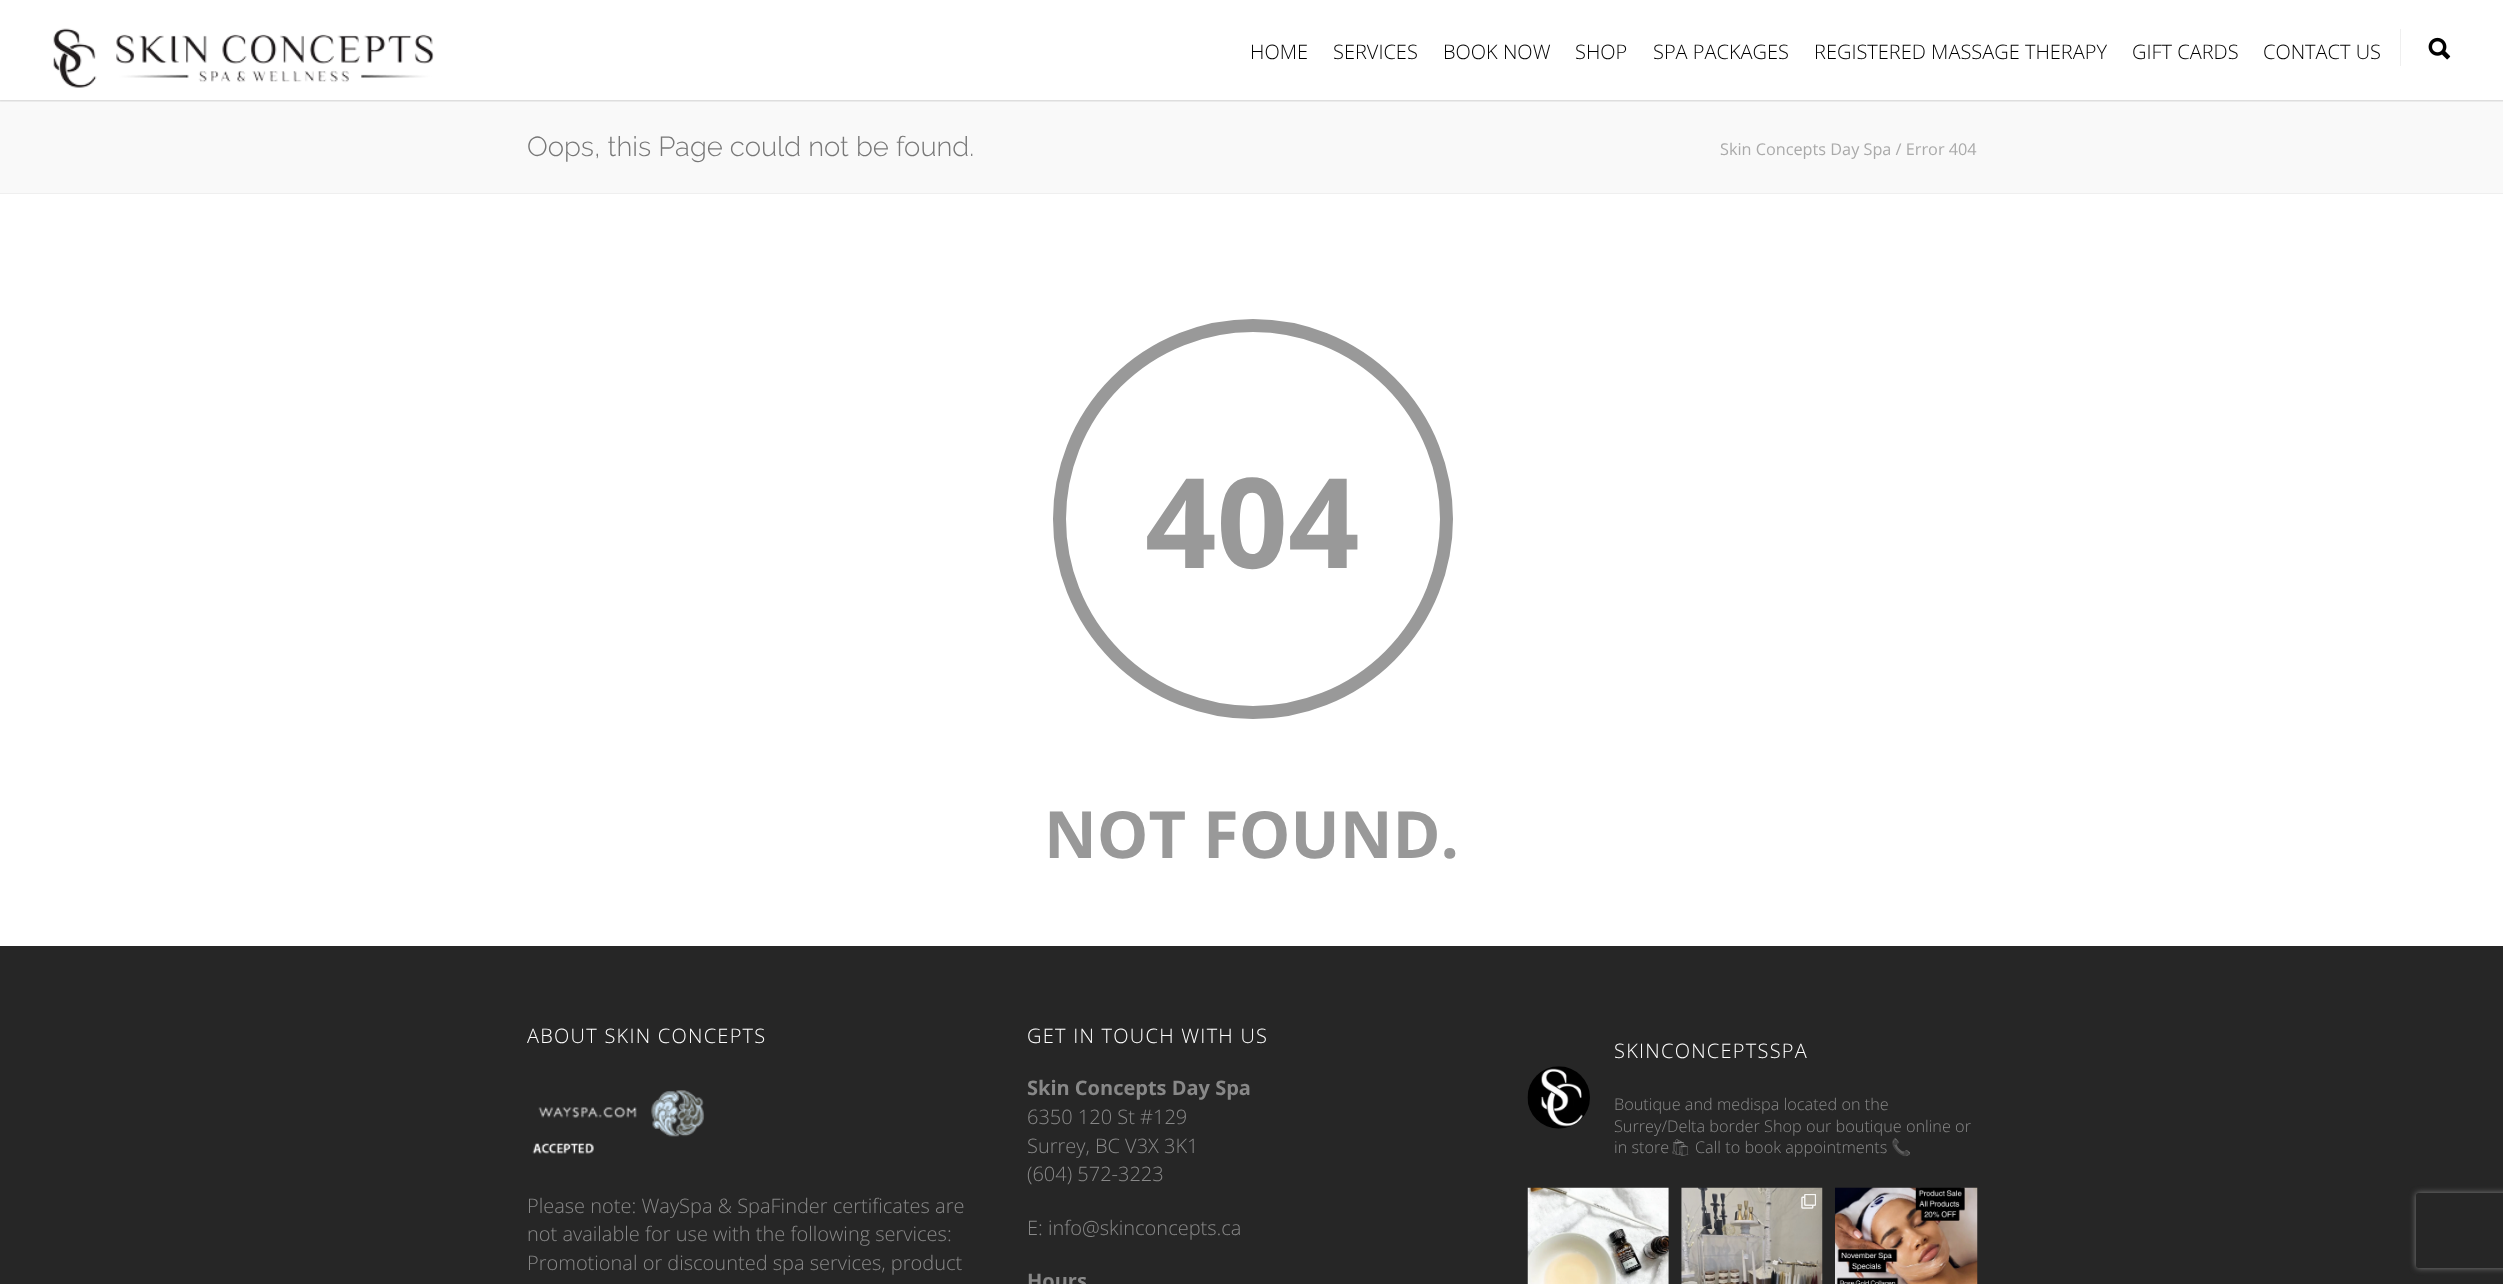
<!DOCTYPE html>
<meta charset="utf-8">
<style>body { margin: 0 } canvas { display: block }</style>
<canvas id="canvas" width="2503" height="1284"></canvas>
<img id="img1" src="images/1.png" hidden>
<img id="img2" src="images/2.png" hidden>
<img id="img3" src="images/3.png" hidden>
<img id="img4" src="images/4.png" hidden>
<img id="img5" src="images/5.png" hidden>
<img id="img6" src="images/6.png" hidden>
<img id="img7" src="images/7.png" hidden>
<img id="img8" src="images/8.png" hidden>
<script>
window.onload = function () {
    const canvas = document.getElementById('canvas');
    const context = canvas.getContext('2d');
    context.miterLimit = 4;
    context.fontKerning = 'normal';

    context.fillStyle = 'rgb(255, 255, 255)';
    context.fillRect(0, 0, 2503, 1284);
    context.fillStyle = 'rgb(249, 249, 249)';
    context.fillRect(0, 100, 2503, 93);
    context.save();
    context.beginPath();
    context.rect(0, 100, 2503, 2);
    context.clip();
    context.fillStyle = 'rgba(0, 0, 0, 0.16)';
    context.filter = 'blur(1px)';
    context.beginPath();
    context.rect(-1, -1, 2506, 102);
    context.fill();
    context.filter = 'none';
    context.restore();
    context.drawImage(document.getElementById('img1'), 53, 28, 381, 60);
    context.fillStyle = 'rgb(239, 239, 239)';
    context.fillRect(2400, 29, 1, 37);
    context.drawImage(document.getElementById('img2'), 2428, 37, 23, 23);
    context.fillRect(0, 193, 2503, 1);
    context.beginPath();
    context.arc(1253, 519, 193.5, 0, 2 * Math.PI);
    context.strokeStyle = 'rgb(153, 153, 153)';
    context.lineWidth = 13;
    context.stroke();
    context.fillStyle = 'rgb(38, 38, 38)';
    context.fillRect(0, 946, 2503, 338);
    context.drawImage(document.getElementById('img3'), 532, 1090, 173, 64);
    context.drawImage(document.getElementById('img4'), 1527, 1066, 63, 63);
    context.drawImage(document.getElementById('img5'), 1527, 1187, 142, 97);
    context.drawImage(document.getElementById('img6'), 1681, 1187, 142, 97);
    context.drawImage(document.getElementById('img7'), 1801, 1194, 15, 15);
    context.drawImage(document.getElementById('img8'), 1835, 1187, 143, 97);
    context.save();
    context.beginPath();
    context.moveTo(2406, 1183);
    context.lineTo(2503, 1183);
    context.lineTo(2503, 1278);
    context.lineTo(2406, 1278);
    context.closePath();
    context.moveTo(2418.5, 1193);
    context.lineTo(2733.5, 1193);
    context.bezierCurveTo(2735, 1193, 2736, 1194, 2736, 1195.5);
    context.lineTo(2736, 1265.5);
    context.bezierCurveTo(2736, 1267, 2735, 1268, 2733.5, 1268);
    context.lineTo(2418.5, 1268);
    context.bezierCurveTo(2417, 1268, 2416, 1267, 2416, 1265.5);
    context.lineTo(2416, 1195.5);
    context.bezierCurveTo(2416, 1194, 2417, 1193, 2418.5, 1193);
    context.closePath();
    context.clip('evenodd');
    context.fillStyle = 'rgb(128, 128, 128)';
    context.filter = 'blur(3px)';
    context.beginPath();
    context.roundRect(2416, 1193, 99, 75, 2.5);
    context.fill();
    context.filter = 'none';
    context.restore();
    context.font = '300 20px Open Sans';
    context.fillStyle = 'rgb(0, 0, 0)';
    context.fillText('HOME', 1250, 59);
    context.fillText('SERVICES', 1333, 59);
    context.fillText('BOOK NOW', 1443, 59);
    context.fillText('SHOP', 1575, 59);
    context.fillText('SPA PACKAGES', 1653, 59);
    context.fillText('REGISTERED MASSAGE THERAPY', 1814, 59);
    context.fillText('GIFT CARDS', 2132, 59);
    context.fillText('CONTACT US', 2263, 59);
    context.font = '100 27.5px Raleway';
    context.fillStyle = 'rgb(119, 119, 119)';
    context.fillText('Oops, this Page could not be found.', 527, 156);
    context.font = '16.25px Open Sans';
    context.fillStyle = 'rgb(170, 170, 170)';
    context.fillText('Skin Concepts Day Spa / Error 404', 1720, 155);
    context.font = 'bold 125px Open Sans';
    context.fillStyle = 'rgb(153, 153, 153)';
    context.fillText('404', 1145, 568);
    context.font = 'bold 65px Open Sans';
    context.fillText('NOT FOUND.', 1044, 858);
    context.letterSpacing = '1.25px';
    context.font = '300 20px Open Sans';
    context.fillStyle = 'rgb(255, 255, 255)';
    context.fillText('ABOUT SKIN CONCEPTS', 527, 1043);
    context.letterSpacing = '0px';
    context.fillStyle = 'rgb(136, 136, 136)';
    context.fillText('Please note: WaySpa & SpaFinder certificates are', 527, 1213);
    context.fillText('not available for use with the following services:', 527, 1241);
    context.fillText('Promotional or discounted spa services, product', 527, 1270);
    context.letterSpacing = '1.25px';
    context.fillStyle = 'rgb(255, 255, 255)';
    context.fillText('GET IN TOUCH WITH US', 1027, 1043);
    context.letterSpacing = '0px';
    context.font = 'bold 20px Open Sans';
    context.fillStyle = 'rgb(136, 136, 136)';
    context.fillText('Skin Concepts Day Spa', 1027, 1095);
    context.font = '300 20px Open Sans';
    context.fillText('6350 120 St #129', 1027, 1124);
    context.fillText('Surrey, BC V3X 3K1', 1027, 1153);
    context.fillText('(604) 572-3223', 1027, 1181);
    context.fillText('E: info@skinconcepts.ca', 1027, 1235);
    context.font = 'bold 20px Open Sans';
    context.fillText('Hours', 1027, 1288);
    context.letterSpacing = '1.25px';
    context.font = '300 20px Open Sans';
    context.fillStyle = 'rgb(255, 255, 255)';
    context.fillText('SKINCONCEPTSSPA', 1614, 1058);
    context.letterSpacing = '0px';
    context.font = '300 16.25px Open Sans';
    context.fillStyle = 'rgb(136, 136, 136)';
    context.fillText('Boutique and medispa located on the', 1614, 1110);
    context.fillText('Surrey/Delta border Shop our boutique online or', 1614, 1132);
    context.fillText('in store', 1614, 1153);
    context.font = '300 16.25px Noto Emoji';
    context.fillText('🛍', 1670, 1153);
    context.font = '300 16.25px Open Sans';
    context.fillText('Call to book appointments', 1695, 1153);
    context.font = '16.25px Noto Color Emoji';
    context.fillText('📞', 1891, 1153);
};
</script>
